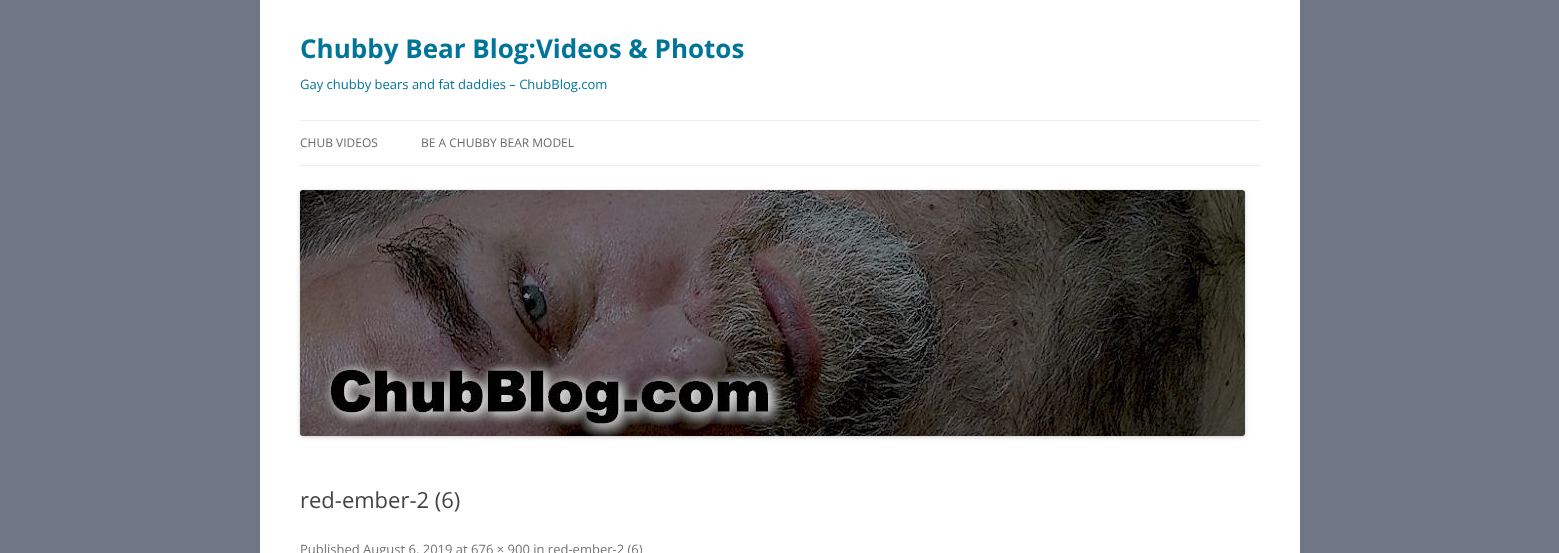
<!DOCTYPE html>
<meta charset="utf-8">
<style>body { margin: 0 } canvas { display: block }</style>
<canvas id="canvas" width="1559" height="553"></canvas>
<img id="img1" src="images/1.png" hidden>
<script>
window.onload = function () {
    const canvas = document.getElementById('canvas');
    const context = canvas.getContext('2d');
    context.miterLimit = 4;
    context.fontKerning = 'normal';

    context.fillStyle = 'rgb(113, 119, 135)';
    context.fillRect(0, 0, 1559, 553);
    context.fillStyle = 'rgba(100, 100, 100, 0.3)';
    context.filter = 'blur(3px)';
    context.beginPath();
    context.rect(260, 2, 1040, 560);
    context.fill();
    context.filter = 'none';
    context.fillStyle = 'rgb(255, 255, 255)';
    context.fillRect(260, 0, 1040, 553);
    context.fillStyle = 'rgb(237, 237, 237)';
    context.fillRect(300, 120, 960, 1);
    context.fillRect(300, 165, 960, 1);
    context.fillStyle = 'rgba(0, 0, 0, 0.2)';
    context.filter = 'blur(2px)';
    context.beginPath();
    context.roundRect(300, 191, 945, 246, 3);
    context.fill();
    context.filter = 'none';
    context.drawImage(document.getElementById('img1'), 300, 190, 945, 246);
    context.font = 'bold 26px Open Sans';
    context.fillStyle = 'rgb(0, 117, 153)';
    context.fillText('Chubby Bear Blog:Videos & Photos', 300, 58);
    context.font = '13px Open Sans';
    context.fillText('Gay chubby bears and fat daddies – ChubBlog.com', 300, 89);
    context.font = '12px Open Sans';
    context.fillStyle = 'rgb(106, 106, 106)';
    context.fillText('CHUB VIDEOS', 300, 147);
    context.fillText('BE A CHUBBY BEAR MODEL', 421, 147);
    context.font = '22px Open Sans';
    context.fillStyle = 'rgb(68, 68, 68)';
    context.fillText('red-ember-2 (6)', 300, 508);
    context.font = '13px Open Sans';
    context.fillStyle = 'rgb(117, 117, 117)';
    context.fillText('Published August 6, 2019 at 676 × 900 in red-ember-2 (6)', 300, 554);
};
</script>
